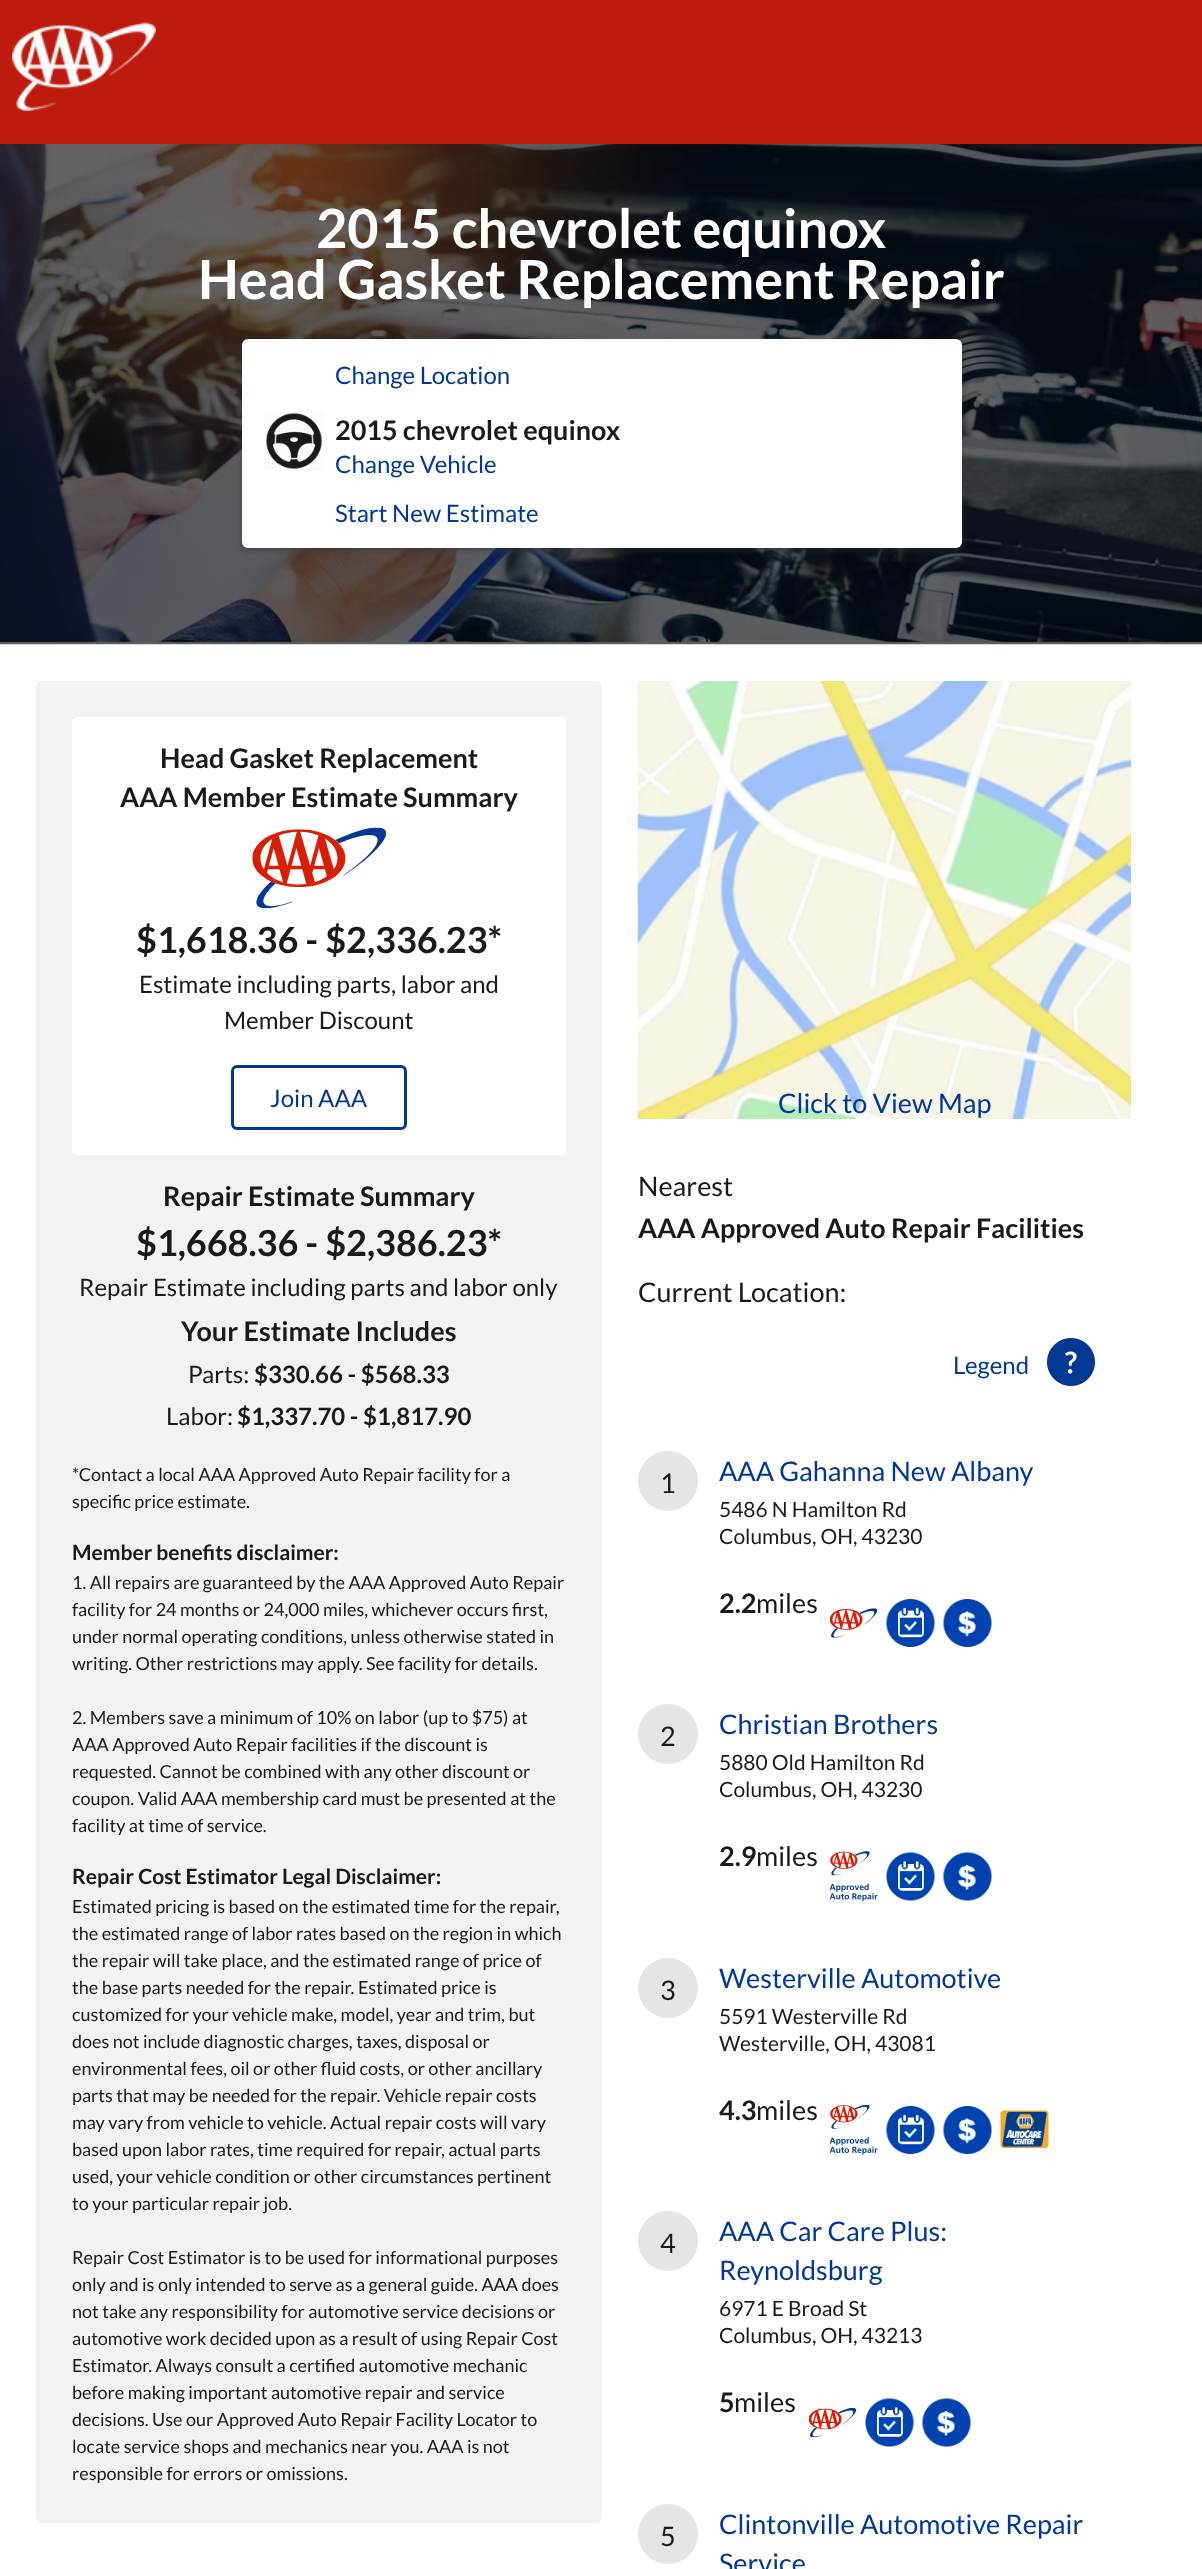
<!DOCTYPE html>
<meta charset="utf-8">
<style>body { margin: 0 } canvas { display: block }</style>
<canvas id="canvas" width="1202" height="2569"></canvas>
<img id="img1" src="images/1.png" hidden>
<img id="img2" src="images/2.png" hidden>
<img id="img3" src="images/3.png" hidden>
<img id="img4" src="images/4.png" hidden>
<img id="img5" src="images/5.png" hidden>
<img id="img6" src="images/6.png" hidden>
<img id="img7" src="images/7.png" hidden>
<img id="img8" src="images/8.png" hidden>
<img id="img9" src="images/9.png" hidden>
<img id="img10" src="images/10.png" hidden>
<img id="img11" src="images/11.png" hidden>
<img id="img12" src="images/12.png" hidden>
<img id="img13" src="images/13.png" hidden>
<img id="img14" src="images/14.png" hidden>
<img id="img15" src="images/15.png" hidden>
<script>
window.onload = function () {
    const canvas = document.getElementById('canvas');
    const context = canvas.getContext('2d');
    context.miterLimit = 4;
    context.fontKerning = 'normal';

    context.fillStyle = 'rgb(255, 255, 255)';
    context.fillRect(0, 0, 1202, 2569);
    context.fillStyle = 'rgb(190, 26, 14)';
    context.fillRect(0, 0, 1202, 144);
    context.drawImage(document.getElementById('img1'), 12, 22, 144, 89);
    context.drawImage(document.getElementById('img2'), 0, 144, 1202, 498);
    context.fillStyle = 'rgb(229, 229, 229)';
    context.fillRect(0, 642, 1202, 2);
    context.fillStyle = 'rgba(0, 0, 0, 0.6)';
    context.fillRect(0, 144, 1202, 500);
    context.fillStyle = 'rgba(50, 50, 50, 0.5)';
    context.filter = 'blur(3px)';
    context.beginPath();
    context.roundRect(242, 342, 720, 209, 6);
    context.fill();
    context.filter = 'none';
    context.fillStyle = 'rgb(255, 255, 255)';
    context.beginPath();
    context.roundRect(242, 339, 720, 209, 6);
    context.fill();
    context.drawImage(document.getElementById('img3'), 264, 411, 60, 60);
    context.fillStyle = 'rgb(217, 217, 217)';
    context.fillRect(0, 644, 1202, 1);
    context.fillStyle = 'rgb(242, 242, 242)';
    context.beginPath();
    context.roundRect(36, 681, 566, 1842, 6);
    context.fill();
    context.fillStyle = 'rgb(255, 255, 255)';
    context.beginPath();
    context.roundRect(72, 717, 494, 438, 6);
    context.fill();
    context.drawImage(document.getElementById('img4'), 252, 827, 134, 82);
    context.beginPath();
    context.roundRect(232.5, 1066.5, 173, 62, 4.5);
    context.strokeStyle = 'rgb(0, 56, 147)';
    context.lineWidth = 3;
    context.stroke();
    context.drawImage(document.getElementById('img5'), 637, 681, 494, 438);
    context.drawImage(document.getElementById('img6'), 1047, 1338, 48, 48);
    context.fillStyle = 'rgb(229, 229, 229)';
    context.beginPath();
    context.arc(668, 1481, 30, 0, 2 * Math.PI);
    context.fill();
    context.drawImage(document.getElementById('img7'), 830, 1608, 47, 30);
    context.drawImage(document.getElementById('img8'), 886, 1599, 49, 48);
    context.drawImage(document.getElementById('img9'), 943, 1599, 49, 48);
    context.beginPath();
    context.arc(668, 1734, 30, 0, 2 * Math.PI);
    context.fill();
    context.drawImage(document.getElementById('img10'), 830, 1851, 48, 51);
    context.drawImage(document.getElementById('img11'), 886, 1852, 49, 49);
    context.drawImage(document.getElementById('img12'), 943, 1852, 49, 49);
    context.beginPath();
    context.arc(668, 1988, 30, 0, 2 * Math.PI);
    context.fill();
    context.drawImage(document.getElementById('img13'), 830, 2105, 48, 50);
    context.drawImage(document.getElementById('img8'), 886, 2106, 49, 48);
    context.drawImage(document.getElementById('img9'), 943, 2106, 49, 48);
    context.drawImage(document.getElementById('img14'), 1000, 2110, 49, 38);
    context.beginPath();
    context.arc(668, 2241, 30, 0, 2 * Math.PI);
    context.fill();
    context.drawImage(document.getElementById('img15'), 809, 2408, 47, 30);
    context.drawImage(document.getElementById('img11'), 865, 2398, 49, 49);
    context.drawImage(document.getElementById('img12'), 922, 2398, 49, 49);
    context.beginPath();
    context.arc(668, 2534, 30, 0, 2 * Math.PI);
    context.fill();
    context.font = 'bold 54px Lato';
    context.fillStyle = 'rgb(255, 255, 255)';
    context.fillText('2015 chevrolet equinox', 316, 248);
    context.fillText('Head Gasket Replacement Repair', 198, 299);
    context.font = '24px Lato';
    context.fillStyle = 'rgb(0, 56, 147)';
    context.fillText('Change Location', 335, 384);
    context.font = 'bold 27px Lato';
    context.fillStyle = 'rgb(26, 26, 26)';
    context.fillText('2015 chevrolet equinox', 335, 440);
    context.font = '24px Lato';
    context.fillStyle = 'rgb(0, 56, 147)';
    context.fillText('Change Vehicle', 335, 473);
    context.fillText('Start New Estimate', 335, 522);
    context.font = 'bold 27px Lato';
    context.fillStyle = 'rgb(26, 26, 26)';
    context.fillText('Head Gasket Replacement', 160, 768);
    context.fillText('AAA Member Estimate Summary', 120, 807);
    context.font = 'bold 36px Lato';
    context.fillText('$1,618.36 - $2,336.23*', 136, 953);
    context.font = '24px Lato';
    context.fillText('Estimate including parts, labor and', 139, 993);
    context.fillText('Member Discount', 224, 1029);
    context.fillStyle = 'rgb(0, 56, 147)';
    context.fillText('Join AAA', 270, 1107);
    context.font = 'bold 27px Lato';
    context.fillStyle = 'rgb(26, 26, 26)';
    context.fillText('Repair Estimate Summary', 163, 1206);
    context.font = 'bold 36px Lato';
    context.fillText('$1,668.36 - $2,386.23*', 136, 1256);
    context.font = '24px Lato';
    context.fillText('Repair Estimate including parts and labor only', 79, 1296);
    context.font = 'bold 27px Lato';
    context.fillText('Your Estimate Includes', 181, 1341);
    context.font = '24px Lato';
    context.fillText('Parts:', 188, 1383);
    context.font = 'bold 24px Lato';
    context.fillText('$330.66 - $568.33', 254, 1383);
    context.font = '24px Lato';
    context.fillText('Labor:', 166, 1425);
    context.font = 'bold 24px Lato';
    context.fillText('$1,337.70 - $1,817.90', 237, 1425);
    context.font = '18px Lato';
    context.fillText('*Contact a local AAA Approved Auto Repair facility for a', 72, 1481);
    context.fillText('specific price estimate.', 72, 1508);
    context.font = 'bold 21px Lato';
    context.fillText('Member benefits disclaimer:', 72, 1560);
    context.font = '18px Lato';
    context.fillText('1. All repairs are guaranteed by the AAA Approved Auto Repair', 72, 1589);
    context.fillText('facility for 24 months or 24,000 miles, whichever occurs first,', 72, 1616);
    context.fillText('under normal operating conditions, unless otherwise stated in', 72, 1643);
    context.fillText('writing. Other restrictions may apply. See facility for details.', 72, 1670);
    context.fillText('2. Members save a minimum of 10% on labor (up to $75) at', 72, 1724);
    context.fillText('AAA Approved Auto Repair facilities if the discount is', 72, 1751);
    context.fillText('requested. Cannot be combined with any other discount or', 72, 1778);
    context.fillText('coupon. Valid AAA membership card must be presented at the', 72, 1805);
    context.fillText('facility at time of service.', 72, 1832);
    context.font = 'bold 21px Lato';
    context.fillText('Repair Cost Estimator Legal Disclaimer:', 72, 1884);
    context.font = '18px Lato';
    context.fillText('Estimated pricing is based on the estimated time for the repair,', 72, 1913);
    context.fillText('the estimated range of labor rates based on the region in which', 72, 1940);
    context.fillText('the repair will take place, and the estimated range of price of', 72, 1967);
    context.fillText('the base parts needed for the repair. Estimated price is', 72, 1994);
    context.fillText('customized for your vehicle make, model, year and trim, but', 72, 2021);
    context.fillText('does not include diagnostic charges, taxes, disposal or', 72, 2048);
    context.fillText('environmental fees, oil or other fluid costs, or other ancillary', 72, 2075);
    context.fillText('parts that may be needed for the repair. Vehicle repair costs', 72, 2102);
    context.fillText('may vary from vehicle to vehicle. Actual repair costs will vary', 72, 2129);
    context.fillText('based upon labor rates, time required for repair, actual parts', 72, 2156);
    context.fillText('used, your vehicle condition or other circumstances pertinent', 72, 2183);
    context.fillText('to your particular repair job.', 72, 2210);
    context.fillText('Repair Cost Estimator is to be used for informational purposes', 72, 2264);
    context.fillText('only and is only intended to serve as a general guide. AAA does', 72, 2291);
    context.fillText('not take any responsibility for automotive service decisions or', 72, 2318);
    context.fillText('automotive work decided upon as a result of using Repair Cost', 72, 2345);
    context.fillText('Estimator. Always consult a certified automotive mechanic', 72, 2372);
    context.fillText('before making important automotive repair and service', 72, 2399);
    context.fillText('decisions. Use our Approved Auto Repair Facility Locator to', 72, 2426);
    context.fillText('locate service shops and mechanics near you. AAA is not', 72, 2453);
    context.fillText('responsible for errors or omissions.', 72, 2480);
    context.font = '27px Lato';
    context.fillStyle = 'rgb(0, 56, 147)';
    context.fillText('Click to View Map', 778, 1113);
    context.fillStyle = 'rgb(26, 26, 26)';
    context.fillText('Nearest', 638, 1196);
    context.font = 'bold 27px Lato';
    context.fillText('AAA Approved Auto Repair Facilities', 638, 1238);
    context.font = '27px Lato';
    context.fillText('Current Location:', 638, 1302);
    context.font = '24px Lato';
    context.fillStyle = 'rgb(0, 56, 147)';
    context.fillText('Legend', 953, 1374);
    context.font = '27px Lato';
    context.fillStyle = 'rgb(26, 26, 26)';
    context.fillText('1', 660, 1493);
    context.fillStyle = 'rgb(0, 56, 147)';
    context.fillText('AAA Gahanna New Albany', 719, 1481);
    context.font = '21px Lato';
    context.fillStyle = 'rgb(26, 26, 26)';
    context.fillText('5486 N Hamilton Rd', 719, 1517);
    context.fillText('Columbus, OH, 43230', 719, 1544);
    context.font = 'bold 27px Lato';
    context.fillText('2.2', 719, 1613);
    context.font = '27px Lato';
    context.fillText('miles', 756, 1613);
    context.fillText('2', 660, 1746);
    context.fillStyle = 'rgb(0, 56, 147)';
    context.fillText('Christian Brothers', 719, 1734);
    context.font = '21px Lato';
    context.fillStyle = 'rgb(26, 26, 26)';
    context.fillText('5880 Old Hamilton Rd', 719, 1770);
    context.fillText('Columbus, OH, 43230', 719, 1797);
    context.font = 'bold 27px Lato';
    context.fillText('2.9', 719, 1866);
    context.font = '27px Lato';
    context.fillText('miles', 756, 1866);
    context.fillText('3', 660, 2000);
    context.fillStyle = 'rgb(0, 56, 147)';
    context.fillText('Westerville Automotive', 719, 1988);
    context.font = '21px Lato';
    context.fillStyle = 'rgb(26, 26, 26)';
    context.fillText('5591 Westerville Rd', 719, 2024);
    context.fillText('Westerville, OH, 43081', 719, 2051);
    context.font = 'bold 27px Lato';
    context.fillText('4.3', 719, 2120);
    context.font = '27px Lato';
    context.fillText('miles', 756, 2120);
    context.fillText('4', 660, 2253);
    context.fillStyle = 'rgb(0, 56, 147)';
    context.fillText('AAA Car Care Plus:', 719, 2241);
    context.fillText('Reynoldsburg', 719, 2280);
    context.font = '21px Lato';
    context.fillStyle = 'rgb(26, 26, 26)';
    context.fillText('6971 E Broad St', 719, 2316);
    context.fillText('Columbus, OH, 43213', 719, 2343);
    context.font = 'bold 27px Lato';
    context.fillText('5', 719, 2412);
    context.font = '27px Lato';
    context.fillText('miles', 734, 2412);
    context.fillText('5', 660, 2546);
    context.fillStyle = 'rgb(0, 56, 147)';
    context.fillText('Clintonville Automotive Repair', 719, 2534);
    context.fillText('Service', 719, 2573);
};
</script>
